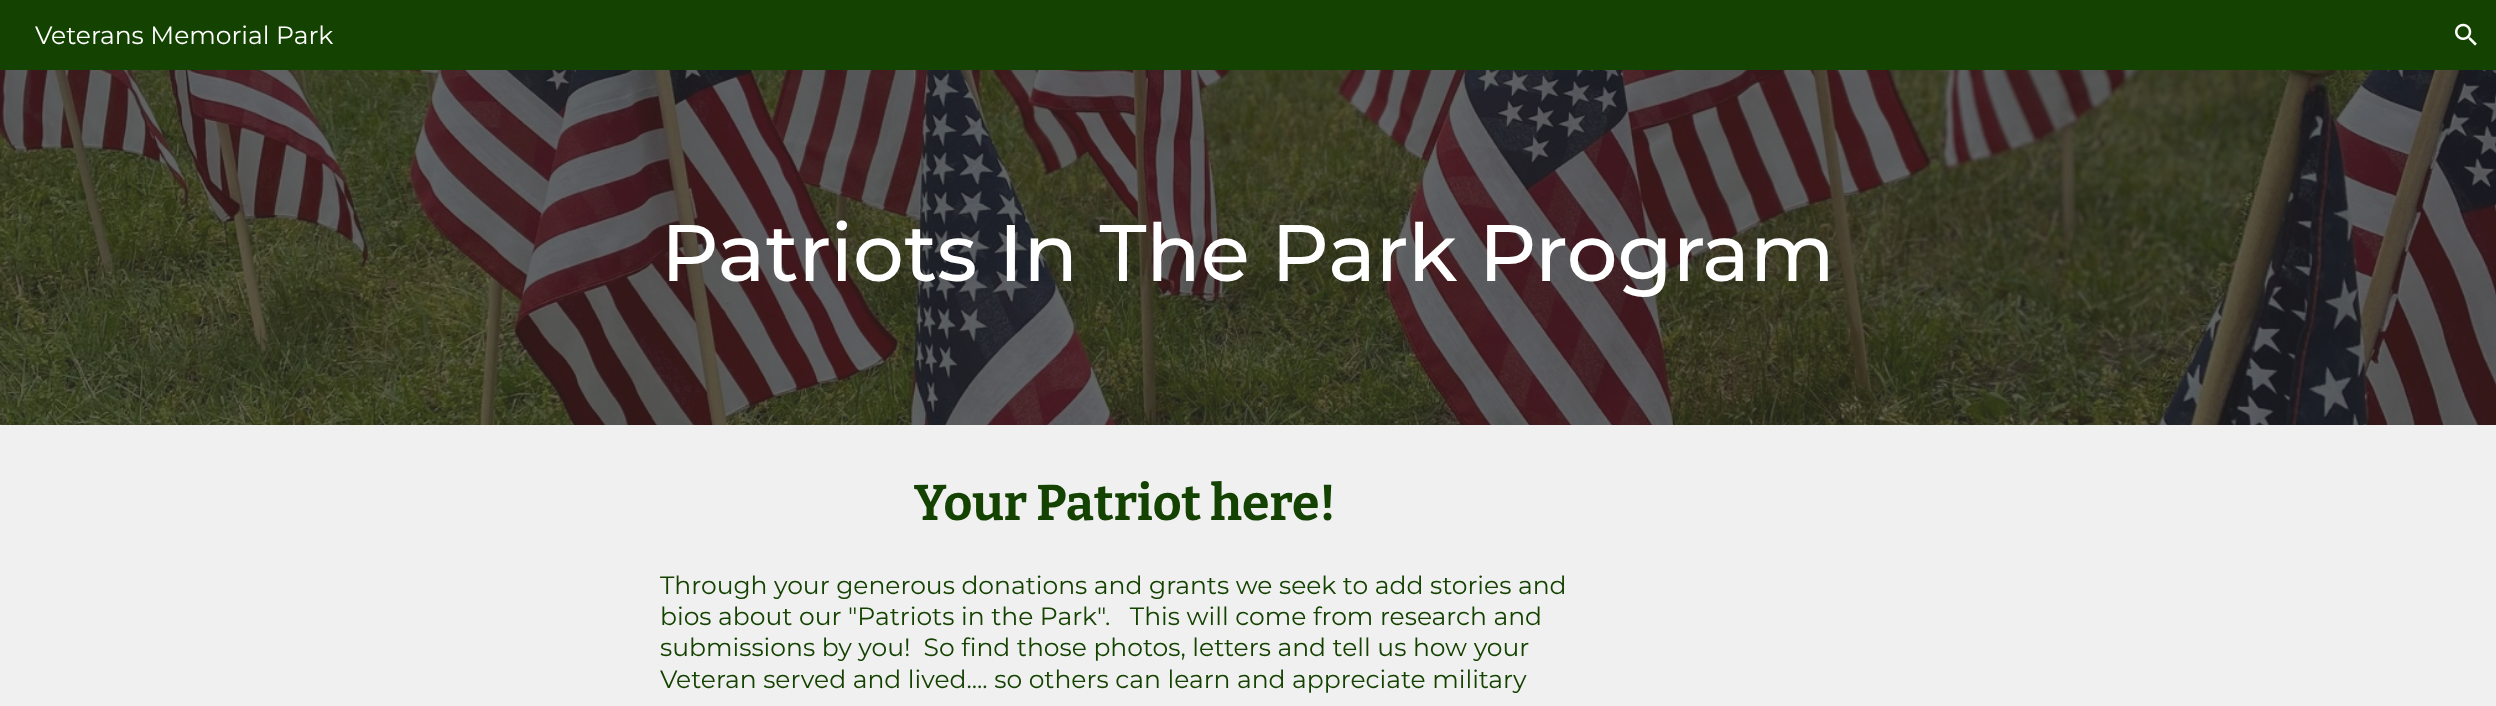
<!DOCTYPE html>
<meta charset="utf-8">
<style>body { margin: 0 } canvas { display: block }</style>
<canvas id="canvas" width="2496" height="706"></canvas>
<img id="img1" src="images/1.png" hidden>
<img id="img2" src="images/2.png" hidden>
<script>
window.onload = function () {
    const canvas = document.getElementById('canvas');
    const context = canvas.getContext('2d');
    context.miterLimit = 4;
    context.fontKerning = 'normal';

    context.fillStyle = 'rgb(255, 255, 255)';
    context.fillRect(0, 0, 2496, 706);
    context.fillStyle = 'rgb(20, 66, 0)';
    context.fillRect(0, 0, 2496, 70);
    context.drawImage(document.getElementById('img1'), 2455, 23, 22, 23);
    context.drawImage(document.getElementById('img2'), 0, 70, 2496, 355);
    context.fillStyle = 'rgb(240, 240, 240)';
    context.fillRect(0, 425, 2496, 281);
    context.font = '25px Montserrat';
    context.fillStyle = 'rgb(255, 255, 255)';
    context.fillText('Veterans Memorial Park', 35, 44);
    context.font = '500 80px Montserrat';
    context.fillText('Patriots In The Park Program', 661, 281);
    context.font = 'bold 50px Bitter';
    context.fillStyle = 'rgb(20, 66, 0)';
    context.fillText('Your Patriot here!', 914, 520);
    context.font = '25px Montserrat';
    context.fillText('Through your generous donations and grants we seek to add stories and', 660, 594);
    context.fillText('bios about our "Patriots in the Park".   This will come from research and', 660, 625);
    context.fillText('submissions by you!  So find those photos, letters and tell us how your', 660, 656);
    context.fillText('Veteran served and lived.... so others can learn and appreciate military', 660, 688);
};
</script>
